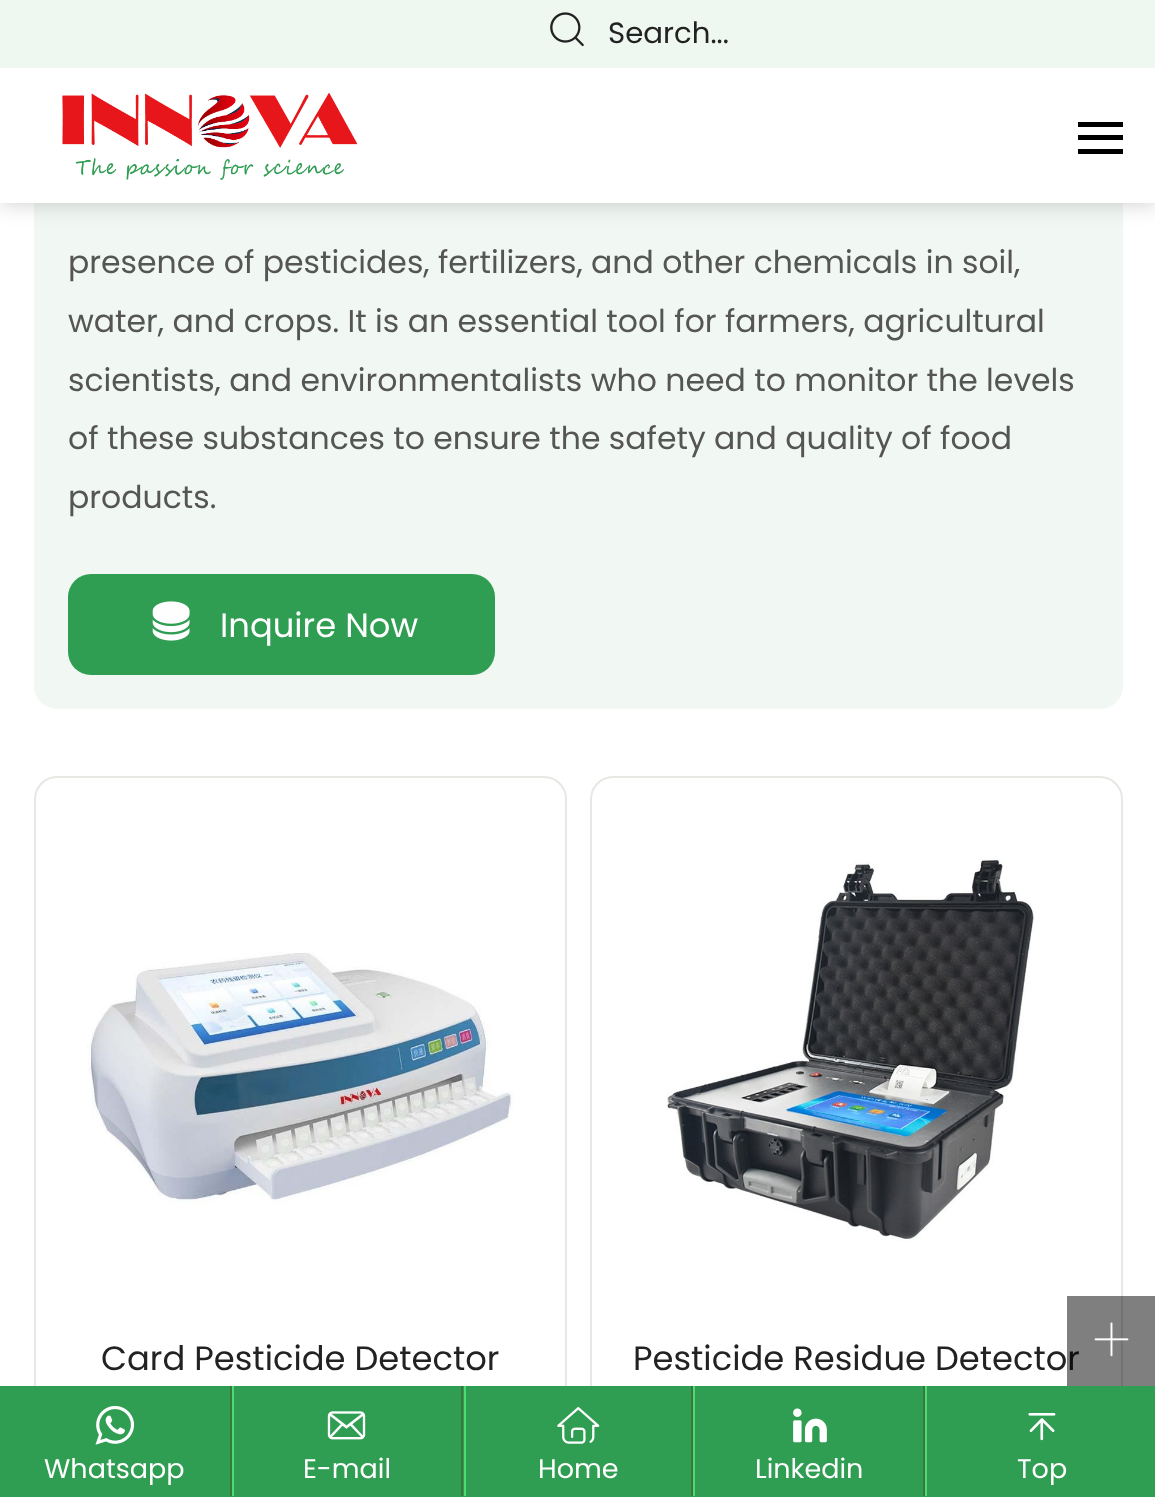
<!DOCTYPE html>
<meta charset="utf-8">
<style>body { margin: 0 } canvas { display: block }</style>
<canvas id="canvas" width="1155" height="1497"></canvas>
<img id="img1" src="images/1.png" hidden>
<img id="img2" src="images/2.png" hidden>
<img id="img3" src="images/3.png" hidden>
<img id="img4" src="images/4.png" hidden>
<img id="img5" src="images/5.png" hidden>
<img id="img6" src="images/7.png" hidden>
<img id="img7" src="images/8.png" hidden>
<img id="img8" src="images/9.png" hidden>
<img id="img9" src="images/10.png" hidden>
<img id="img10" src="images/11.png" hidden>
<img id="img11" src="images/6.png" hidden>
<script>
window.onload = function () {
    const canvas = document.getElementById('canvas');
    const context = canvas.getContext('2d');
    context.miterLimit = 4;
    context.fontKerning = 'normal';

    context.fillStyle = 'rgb(255, 255, 255)';
    context.fillRect(0, 0, 1155, 1497);
    context.fillStyle = 'rgb(241, 248, 243)';
    context.beginPath();
    context.roundRect(34, -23, 1089, 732, 23);
    context.fill();
    context.fillStyle = 'rgba(0, 0, 0, 0.2)';
    context.filter = 'blur(11px)';
    context.beginPath();
    context.rect(0, 0, 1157, 203);
    context.fill();
    context.filter = 'none';
    context.fillStyle = 'rgb(255, 255, 255)';
    context.fillRect(0, 68, 1155, 135);
    context.fillStyle = 'rgb(239, 247, 241)';
    context.fillRect(0, 0, 1155, 68);
    context.drawImage(document.getElementById('img1'), 550, 12, 34, 35);
    context.drawImage(document.getElementById('img2'), 62, 93, 296, 87);
    context.fillStyle = 'rgb(0, 0, 0)';
    context.fillRect(1078, 122, 45, 5);
    context.fillRect(1078, 135, 45, 5);
    context.fillRect(1078, 149, 45, 5);
    context.fillStyle = 'rgb(47, 157, 82)';
    context.beginPath();
    context.roundRect(68, 574, 427, 101, 23);
    context.fill();
    context.drawImage(document.getElementById('img3'), 152, 601, 38, 40);
    context.beginPath();
    context.roundRect(35, 777, 531, 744, 22);
    context.strokeStyle = 'rgb(232, 231, 227)';
    context.lineWidth = 2;
    context.stroke();
    context.drawImage(document.getElementById('img4'), 87, 952, 427, 252);
    context.beginPath();
    context.roundRect(591, 777, 531, 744, 22);
    context.stroke();
    context.drawImage(document.getElementById('img5'), 666, 858, 370, 383);
    context.fillRect(0, 1386, 1155, 111);
    context.fillStyle = 'rgb(60, 118, 61)';
    context.fillRect(230, 1386, 2, 110);
    context.drawImage(document.getElementById('img6'), 95, 1405, 40, 40);
    context.fillRect(461, 1386, 2, 110);
    context.fillStyle = 'rgb(74, 219, 114)';
    context.fillRect(232, 1386, 2, 110);
    context.drawImage(document.getElementById('img7'), 327, 1411, 39, 29);
    context.fillStyle = 'rgb(60, 118, 61)';
    context.fillRect(691, 1386, 2, 110);
    context.fillStyle = 'rgb(74, 219, 114)';
    context.fillRect(464, 1386, 2, 110);
    context.drawImage(document.getElementById('img8'), 557, 1407, 43, 37);
    context.fillStyle = 'rgb(60, 118, 61)';
    context.fillRect(923, 1386, 2, 110);
    context.fillStyle = 'rgb(74, 219, 114)';
    context.fillRect(693, 1386, 2, 110);
    context.drawImage(document.getElementById('img9'), 793, 1408, 34, 35);
    context.fillRect(925, 1386, 2, 110);
    context.drawImage(document.getElementById('img10'), 1028, 1413, 28, 28);
    context.font = '29.25px Poppins';
    context.fillStyle = 'rgb(34, 34, 34)';
    context.fillText('Search...', 608, 43);
    context.font = '31.5px Poppins';
    context.fillStyle = 'rgb(85, 85, 85)';
    context.fillText('presence of pesticides, fertilizers, and other chemicals in soil,', 68, 273);
    context.fillText('water, and crops. It is an essential tool for farmers, agricultural', 68, 332);
    context.fillText('scientists, and environmentalists who need to monitor the levels', 68, 391);
    context.fillText('of these substances to ensure the safety and quality of food', 68, 449);
    context.fillText('products.', 68, 508);
    context.font = '33.75px Poppins';
    context.fillStyle = 'rgb(255, 254, 254)';
    context.fillText('Inquire Now', 220, 637);
    context.fillStyle = 'rgb(34, 34, 34)';
    context.fillText('Card Pesticide Detector', 101, 1370);
    context.fillText('Pesticide Residue Detector', 633, 1370);
    context.fillStyle = 'rgba(0, 0, 0, 0.5)';
    context.fillRect(1067, 1296, 88, 90);
    context.drawImage(document.getElementById('img11'), 1094, 1322, 35, 35);
    context.font = '27px Poppins';
    context.fillStyle = 'rgb(255, 254, 254)';
    context.fillText('Whatsapp', 44, 1478);
    context.fillText('E-mail', 303, 1478);
    context.fillText('Home', 538, 1478);
    context.fillText('Linkedin', 755, 1478);
    context.fillText('Top', 1017, 1478);
};
</script>
